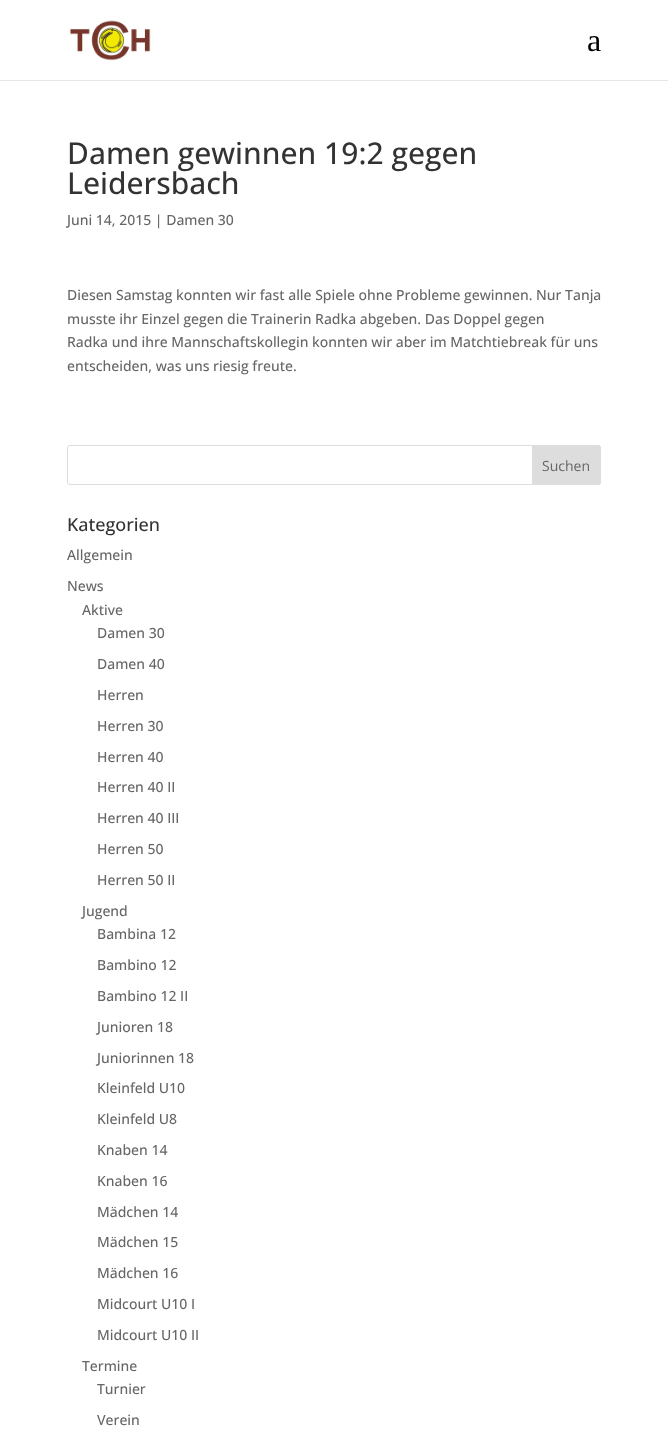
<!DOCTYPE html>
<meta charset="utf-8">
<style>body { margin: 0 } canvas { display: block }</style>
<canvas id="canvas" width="668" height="1440"></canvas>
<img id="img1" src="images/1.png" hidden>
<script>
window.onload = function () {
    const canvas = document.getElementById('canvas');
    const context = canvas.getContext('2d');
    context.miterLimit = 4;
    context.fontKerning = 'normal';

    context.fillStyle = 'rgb(255, 255, 255)';
    context.fillRect(0, 0, 668, 1440);
    context.fillStyle = 'rgb(230, 230, 230)';
    context.fillRect(0, 80, 668, 1);
    context.drawImage(document.getElementById('img1'), 70, 20, 81, 41);
    context.beginPath();
    context.roundRect(67.5, 445.5, 533, 39, 2.5);
    context.strokeStyle = 'rgb(221, 221, 221)';
    context.stroke();
    context.fillStyle = 'rgb(221, 221, 221)';
    context.beginPath();
    context.roundRect(532.5, 445.5, 68, 39, [0, 2.5, 2.5, 0]);
    context.fill();
    context.stroke();
    context.font = '32px Liberation Serif';
    context.fillStyle = 'rgb(0, 0, 0)';
    context.fillText('a', 587, 51);
    context.font = '500 30px Open Sans';
    context.fillStyle = 'rgb(51, 51, 51)';
    context.fillText('Damen gewinnen 19:2 gegen', 67, 164);
    context.fillText('Leidersbach', 67, 194);
    context.font = '500 14px Open Sans';
    context.fillStyle = 'rgb(102, 102, 102)';
    context.fillText('Juni 14, 2015 | Damen 30', 67, 225);
    context.fillText('Diesen Samstag konnten wir fast alle Spiele ohne Probleme gewinnen. Nur Tanja', 67, 300);
    context.fillText('musste ihr Einzel gegen die Trainerin Radka abgeben. Das Doppel gegen', 67, 324);
    context.fillText('Radka und ihre Mannschaftskollegin konnten wir aber im Matchtiebreak für uns', 67, 347);
    context.fillText('entscheiden, was uns riesig freute.', 67, 371);
    context.font = '14px Open Sans';
    context.fillText('Suchen', 542, 471);
    context.font = '500 18px Open Sans';
    context.fillStyle = 'rgb(51, 51, 51)';
    context.fillText('Kategorien', 67, 531);
    context.font = '500 14px Open Sans';
    context.fillStyle = 'rgb(102, 102, 102)';
    context.fillText('Allgemein', 67, 560);
    context.fillText('News', 67, 591);
    context.fillText('Aktive', 82, 615);
    context.fillText('Damen 30', 97, 638);
    context.fillText('Damen 40', 97, 669);
    context.fillText('Herren', 97, 700);
    context.fillText('Herren 30', 97, 731);
    context.fillText('Herren 40', 97, 762);
    context.fillText('Herren 40 II', 97, 792);
    context.fillText('Herren 40 III', 97, 823);
    context.fillText('Herren 50', 97, 854);
    context.fillText('Herren 50 II', 97, 885);
    context.fillText('Jugend', 82, 916);
    context.fillText('Bambina 12', 97, 939);
    context.fillText('Bambino 12', 97, 970);
    context.fillText('Bambino 12 II', 97, 1001);
    context.fillText('Junioren 18', 97, 1032);
    context.fillText('Juniorinnen 18', 97, 1063);
    context.fillText('Kleinfeld U10', 97, 1093);
    context.fillText('Kleinfeld U8', 97, 1124);
    context.fillText('Knaben 14', 97, 1155);
    context.fillText('Knaben 16', 97, 1186);
    context.fillText('Mädchen 14', 97, 1217);
    context.fillText('Mädchen 15', 97, 1247);
    context.fillText('Mädchen 16', 97, 1278);
    context.fillText('Midcourt U10 I', 97, 1309);
    context.fillText('Midcourt U10 II', 97, 1340);
    context.fillText('Termine', 82, 1371);
    context.fillText('Turnier', 97, 1394);
    context.fillText('Verein', 97, 1425);
};
</script>
